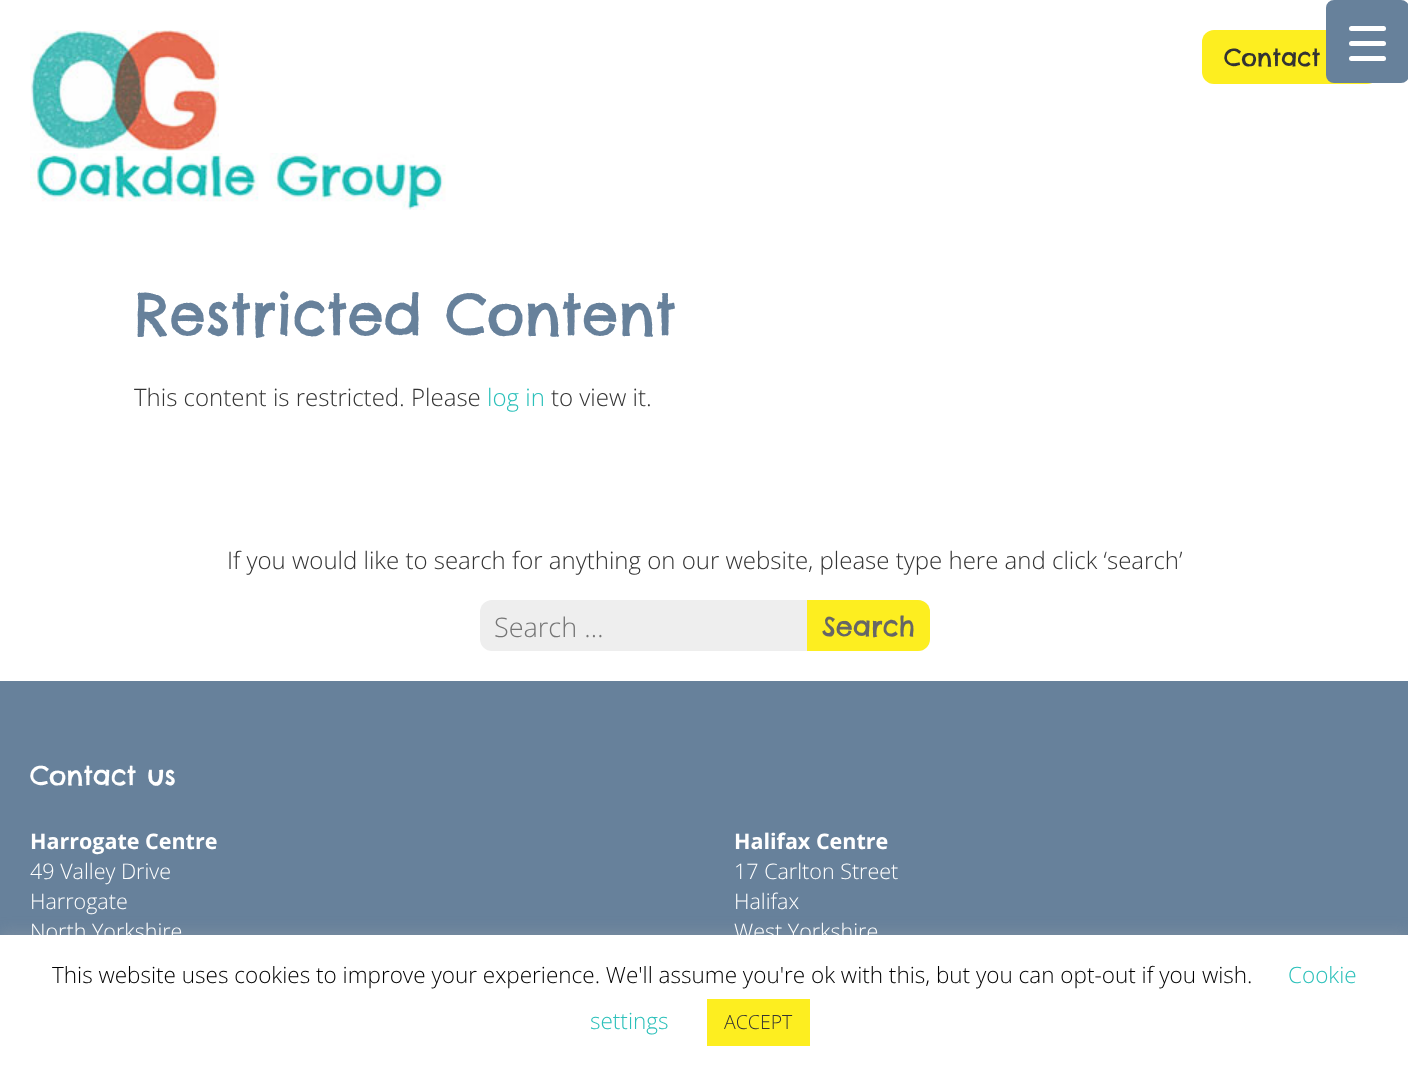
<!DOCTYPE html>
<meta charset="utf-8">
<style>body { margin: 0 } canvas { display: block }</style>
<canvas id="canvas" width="1408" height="1071"></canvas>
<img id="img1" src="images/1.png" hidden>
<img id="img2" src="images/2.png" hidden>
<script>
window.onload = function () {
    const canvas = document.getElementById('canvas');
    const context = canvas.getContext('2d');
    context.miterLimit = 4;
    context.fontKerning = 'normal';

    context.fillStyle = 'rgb(255, 255, 255)';
    context.fillRect(0, 0, 1408, 1071);
    context.drawImage(document.getElementById('img1'), 30, 30, 189, 121);
    context.drawImage(document.getElementById('img2'), 30, 153, 416, 57);
    context.fillStyle = 'rgb(253, 238, 32)';
    context.beginPath();
    context.roundRect(1202, 30, 177, 54, 12);
    context.fill();
    context.fillStyle = 'rgb(103, 129, 155)';
    context.beginPath();
    context.roundRect(1326, 0, 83, 83, 8);
    context.fill();
    context.fillStyle = 'rgb(255, 255, 255)';
    context.beginPath();
    context.roundRect(1349, 41, 37, 5, 2.5);
    context.fill();
    context.beginPath();
    context.roundRect(1349, 26, 37, 5, 2.5);
    context.fill();
    context.beginPath();
    context.roundRect(1349, 56, 37, 5, 2.5);
    context.fill();
    context.fillStyle = 'rgb(238, 238, 238)';
    context.beginPath();
    context.roundRect(480, 600, 450, 51, 12);
    context.fill();
    context.fillStyle = 'rgb(253, 238, 32)';
    context.beginPath();
    context.roundRect(807, 600, 123, 51, [0, 12, 12, 0]);
    context.fill();
    context.fillStyle = 'rgb(103, 129, 155)';
    context.fillRect(0, 681, 1408, 254);
    context.fillStyle = 'rgba(172, 171, 171, 0.3)';
    context.filter = 'blur(7.5px)';
    context.beginPath();
    context.rect(0, 933, 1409, 137);
    context.fill();
    context.filter = 'none';
    context.fillStyle = 'rgb(255, 255, 255)';
    context.fillRect(0, 935, 1408, 136);
    context.fillStyle = 'rgb(253, 238, 32)';
    context.fillRect(707, 999, 103, 47);
    context.font = '24px Chelsea Market';
    context.fillStyle = 'rgb(51, 51, 51)';
    context.fillText('Contact', 1224, 66);
    context.font = '57.5px Chelsea Market';
    context.fillStyle = 'rgb(103, 129, 155)';
    context.fillText('Restricted Content', 134, 335);
    context.font = '300 24px Open Sans';
    context.fillStyle = 'rgb(51, 51, 51)';
    context.fillText('This content is restricted. Please', 134, 406);
    context.fillStyle = 'rgb(43, 192, 186)';
    context.fillText('log in', 487, 406);
    context.fillStyle = 'rgb(51, 51, 51)';
    context.fillText('to view it.', 551, 406);
    context.fillText('If you would like to search for anything on our website, please type here and click ‘search’', 227, 569);
    context.font = '300 27px Open Sans';
    context.fillStyle = 'rgb(117, 117, 117)';
    context.fillText('Search …', 494, 637);
    context.font = '27px Chelsea Market';
    context.fillStyle = 'rgb(102, 102, 102)';
    context.fillText('Search', 822, 636);
    context.font = '26.5px Chelsea Market';
    context.fillStyle = 'rgb(255, 255, 255)';
    context.fillText('Contact us', 30, 785);
    context.font = 'bold 21.5px Open Sans';
    context.fillText('Harrogate Centre', 30, 849);
    context.font = '300 21.5px Open Sans';
    context.fillText('49 Valley Drive', 30, 879);
    context.fillText('Harrogate', 30, 909);
    context.fillText('North Yorkshire', 30, 939);
    context.font = 'bold 21.5px Open Sans';
    context.fillText('Halifax Centre', 734, 849);
    context.font = '300 21.5px Open Sans';
    context.fillText('17 Carlton Street', 734, 879);
    context.fillText('Halifax', 734, 909);
    context.fillText('West Yorkshire', 734, 939);
    context.font = '300 22.5px Open Sans';
    context.fillStyle = 'rgb(0, 0, 0)';
    context.fillText('This website uses cookies to improve your experience. We\'ll assume you\'re ok with this, but you can opt-out if you wish.', 52, 983);
    context.fillStyle = 'rgb(43, 192, 186)';
    context.fillText('Cookie', 1288, 983);
    context.fillText('settings', 590, 1029);
    context.font = '300 19.5px Open Sans';
    context.fillStyle = 'rgb(51, 51, 51)';
    context.fillText('ACCEPT', 724, 1029);
};
</script>
